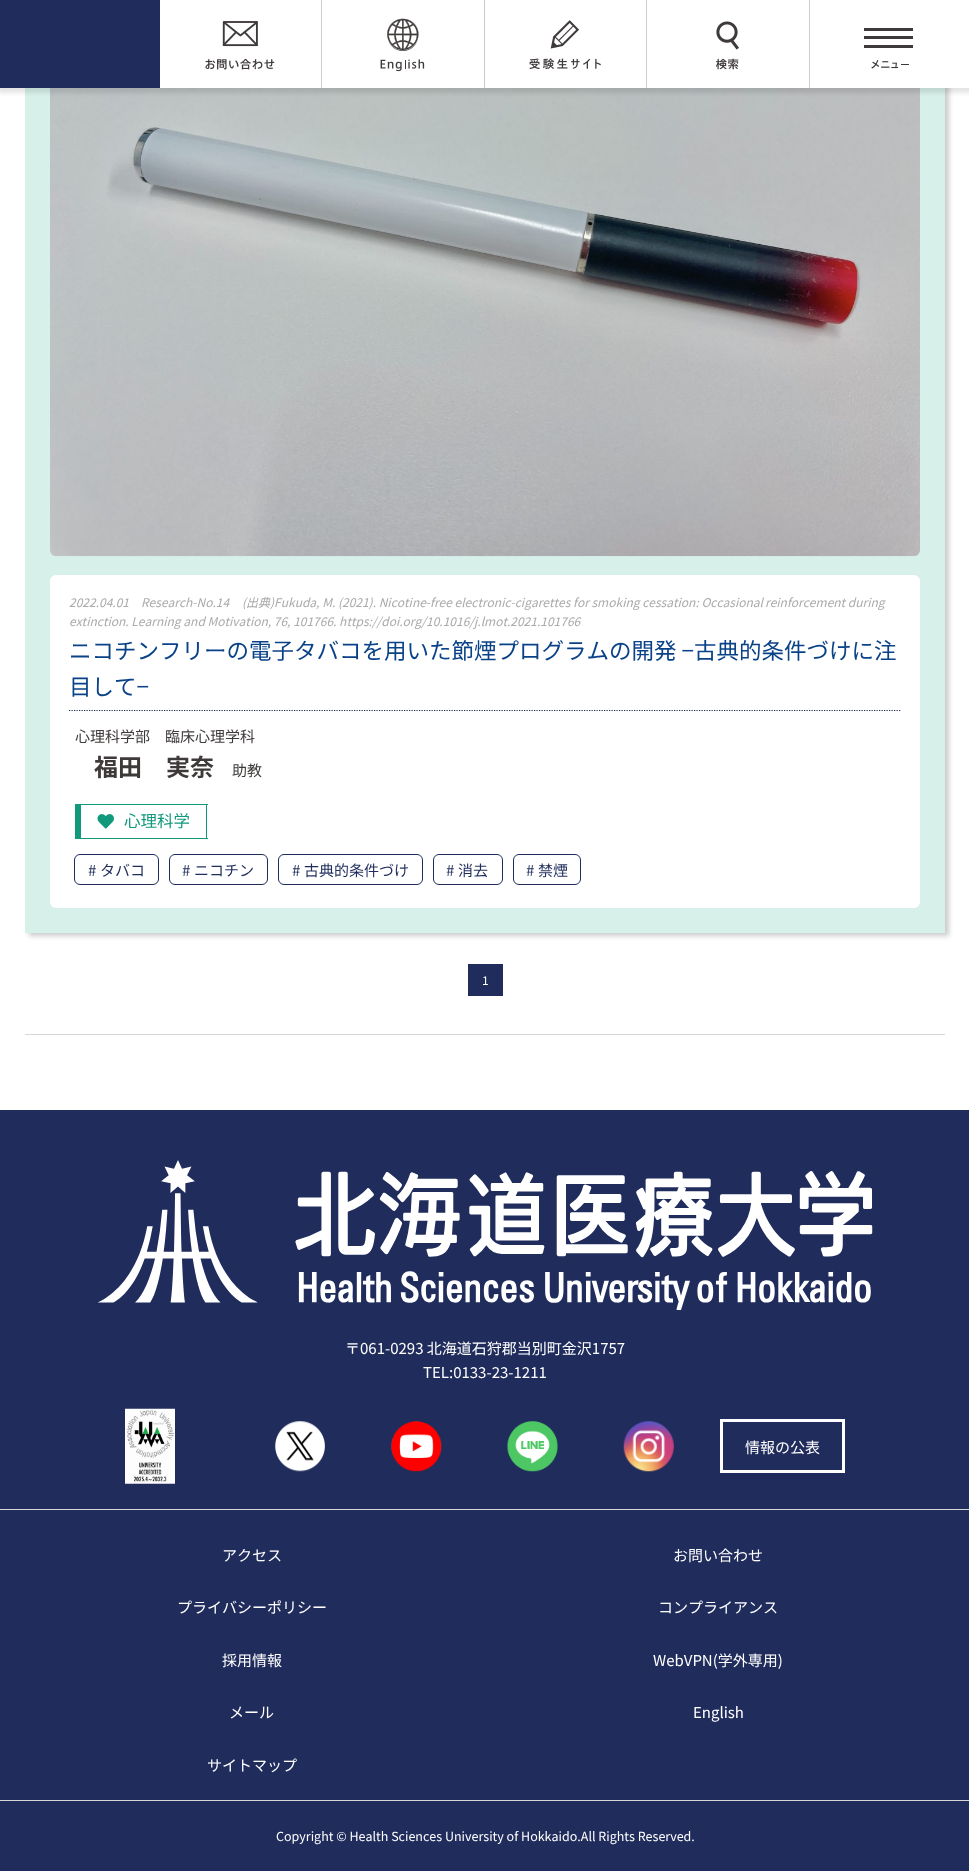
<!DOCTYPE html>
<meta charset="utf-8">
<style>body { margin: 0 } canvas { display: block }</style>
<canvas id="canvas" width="969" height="1871"></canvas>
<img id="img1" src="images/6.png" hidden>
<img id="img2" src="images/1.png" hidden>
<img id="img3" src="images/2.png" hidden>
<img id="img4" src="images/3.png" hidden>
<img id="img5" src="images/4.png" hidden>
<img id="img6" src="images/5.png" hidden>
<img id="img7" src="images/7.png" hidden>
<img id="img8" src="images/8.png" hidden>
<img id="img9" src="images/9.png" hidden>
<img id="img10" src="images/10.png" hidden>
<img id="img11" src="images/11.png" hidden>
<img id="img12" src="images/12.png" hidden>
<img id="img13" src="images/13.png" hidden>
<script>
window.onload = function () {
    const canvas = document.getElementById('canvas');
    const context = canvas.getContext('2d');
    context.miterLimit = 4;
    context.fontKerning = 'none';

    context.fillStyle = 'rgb(255, 255, 255)';
    context.fillRect(0, 0, 969, 1871);
    context.fillStyle = 'rgb(204, 204, 204)';
    context.filter = 'blur(2.5px)';
    context.beginPath();
    context.rect(29, -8, 920, 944);
    context.fill();
    context.filter = 'none';
    context.fillStyle = 'rgb(215, 240, 234)';
    context.fillRect(25, 88, 920, 845);
    context.drawImage(document.getElementById('img1'), 50, 88, 870, 469);
    context.fillStyle = 'rgba(0, 0, 0, 0.1)';
    context.filter = 'blur(2px)';
    context.beginPath();
    context.rect(-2, 0, 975, 93);
    context.fill();
    context.filter = 'none';
    context.fillStyle = 'rgb(31, 44, 92)';
    context.fillRect(0, 0, 160, 88);
    context.fillStyle = 'rgb(255, 255, 255)';
    context.fillRect(160, 0, 649, 88);
    context.fillStyle = 'rgb(204, 204, 204)';
    context.fillRect(321, 0, 1, 88);
    context.drawImage(document.getElementById('img2'), 205, 21, 70, 49);
    context.fillRect(484, 0, 1, 88);
    context.drawImage(document.getElementById('img3'), 380, 18, 45, 54);
    context.fillRect(646, 0, 1, 88);
    context.drawImage(document.getElementById('img4'), 529, 20, 72, 49);
    context.fillRect(809, 0, 1, 88);
    context.drawImage(document.getElementById('img5'), 716, 21, 23, 49);
    context.fillStyle = 'rgb(255, 255, 255)';
    context.fillRect(810, 0, 159, 88);
    context.drawImage(document.getElementById('img6'), 871, 60, 38, 9);
    context.fillStyle = 'rgb(62, 58, 57)';
    context.fillRect(864, 28, 49, 3);
    context.fillRect(864, 36, 49, 3);
    context.fillRect(864, 45, 49, 3);
    context.fillStyle = 'rgb(216, 216, 216)';
    context.fillRect(25, 1034, 920, 1);
    context.fillStyle = 'rgb(255, 255, 255)';
    context.beginPath();
    context.roundRect(50, 575, 870, 333, 6);
    context.fill();
    context.beginPath();
    context.moveTo(69, 710.5);
    context.lineTo(901, 710.5);
    context.strokeStyle = 'rgb(31, 44, 92)';
    context.lineWidth = 1.2;
    context.setLineDash([1.25, 1.25]);
    context.stroke();
    context.fillStyle = 'rgb(17, 153, 124)';
    context.fillRect(75, 804, 133, 1);
    context.fillRect(206, 804, 1, 35);
    context.fillRect(75, 838, 133, 1);
    context.fillRect(75, 804, 6, 35);
    context.drawImage(document.getElementById('img7'), 97, 814, 17, 15);
    context.beginPath();
    context.roundRect(74.5, 854.5, 84, 30, 5.5);
    context.lineWidth = 1;
    context.setLineDash([]);
    context.stroke();
    context.beginPath();
    context.roundRect(169.5, 854.5, 98, 30, 5.5);
    context.stroke();
    context.beginPath();
    context.roundRect(278.5, 854.5, 144, 30, 5.5);
    context.stroke();
    context.beginPath();
    context.roundRect(433.5, 854.5, 69, 30, 5.5);
    context.stroke();
    context.beginPath();
    context.roundRect(513.5, 854.5, 67, 30, 5.5);
    context.stroke();
    context.fillStyle = 'rgb(31, 44, 92)';
    context.fillRect(468, 964, 35, 32);
    context.fillRect(0, 1110, 969, 761);
    context.drawImage(document.getElementById('img8'), 98, 1160, 775, 150);
    context.drawImage(document.getElementById('img9'), 125, 1408, 50, 76);
    context.drawImage(document.getElementById('img10'), 275, 1421, 50, 51);
    context.drawImage(document.getElementById('img11'), 391, 1421, 51, 51);
    context.drawImage(document.getElementById('img12'), 507, 1421, 51, 51);
    context.drawImage(document.getElementById('img13'), 623, 1421, 51, 51);
    context.strokeStyle = 'rgb(255, 255, 255)';
    context.lineWidth = 3;
    context.strokeRect(721.5, 1420.5, 122, 51);
    context.fillStyle = 'rgb(216, 216, 216)';
    context.fillRect(0, 1509, 969, 1);
    context.fillRect(0, 1800, 969, 1);
    context.font = 'italic 12px Noto Sans JP';
    context.fillStyle = 'rgb(170, 170, 170)';
    context.fillText('2022.04.01', 69, 607);
    context.fillText('Research-No.14', 141, 607);
    context.fillText('(出典)Fukuda, M. (2021). Nicotine-free electronic-cigarettes for smoking cessation: Occasional', 242, 607);
    context.fillText('reinforcement during', 765, 607);
    context.fillText('extinction. Learning and Motivation, 76, 101766. https://doi.org/10.1016/j.lmot.2021.101766', 69, 626);
    context.font = '22.5px Noto Sans JP';
    context.fillStyle = 'rgb(10, 66, 136)';
    context.fillText('ニコチンフリーの電子タバコを用いた節煙プログラムの開発 −古典的条件づけに注', 69, 659);
    context.fillText('目して−', 69, 695);
    context.font = '15px Noto Sans JP';
    context.fillStyle = 'rgb(62, 58, 57)';
    context.fillText('心理科学部　臨床心理学科', 75, 742);
    context.font = 'bold 24px Noto Sans JP';
    context.fillText('福田　実奈', 94, 776);
    context.font = '15px Noto Sans JP';
    context.fillText('助教', 232, 776);
    context.font = '16.5px Noto Sans JP';
    context.fillStyle = 'rgb(17, 153, 124)';
    context.fillText('心理科学', 124, 827);
    context.font = '15px Noto Sans JP';
    context.fillStyle = 'rgb(31, 44, 92)';
    context.fillText('#', 88, 876);
    context.fillText('タバコ', 100, 876);
    context.fillText('#', 182, 876);
    context.fillText('ニコチン', 194, 876);
    context.fillText('#', 292, 876);
    context.fillText('古典的条件づけ', 304, 876);
    context.fillText('#', 446, 876);
    context.fillText('消去', 458, 876);
    context.fillText('#', 526, 876);
    context.fillText('禁煙', 538, 876);
    context.font = '12px Noto Sans JP';
    context.fillStyle = 'rgb(255, 255, 255)';
    context.fillText('1', 482, 985);
    context.font = '15px Noto Sans JP';
    context.fillText('〒061-0293 北海道石狩郡当別町金沢1757', 345, 1354);
    context.fillText('TEL:0133-23-1211', 423, 1378);
    context.fillText('情報の公表', 745, 1453);
    context.fillText('アクセス', 222, 1561);
    context.fillText('お問い合わせ', 673, 1561);
    context.fillText('プライバシーポリシー', 177, 1613);
    context.fillText('コンプライアンス', 658, 1613);
    context.fillText('採用情報', 222, 1666);
    context.fillText('WebVPN(学外専用)', 653, 1666);
    context.fillText('メール', 229, 1718);
    context.fillText('English', 693, 1718);
    context.fillText('サイトマップ', 207, 1771);
    context.font = '12.5px Noto Sans JP';
    context.fillText('Copyright © Health Sciences University of Hokkaido.All Rights Reserved.', 276, 1841);
};
</script>
